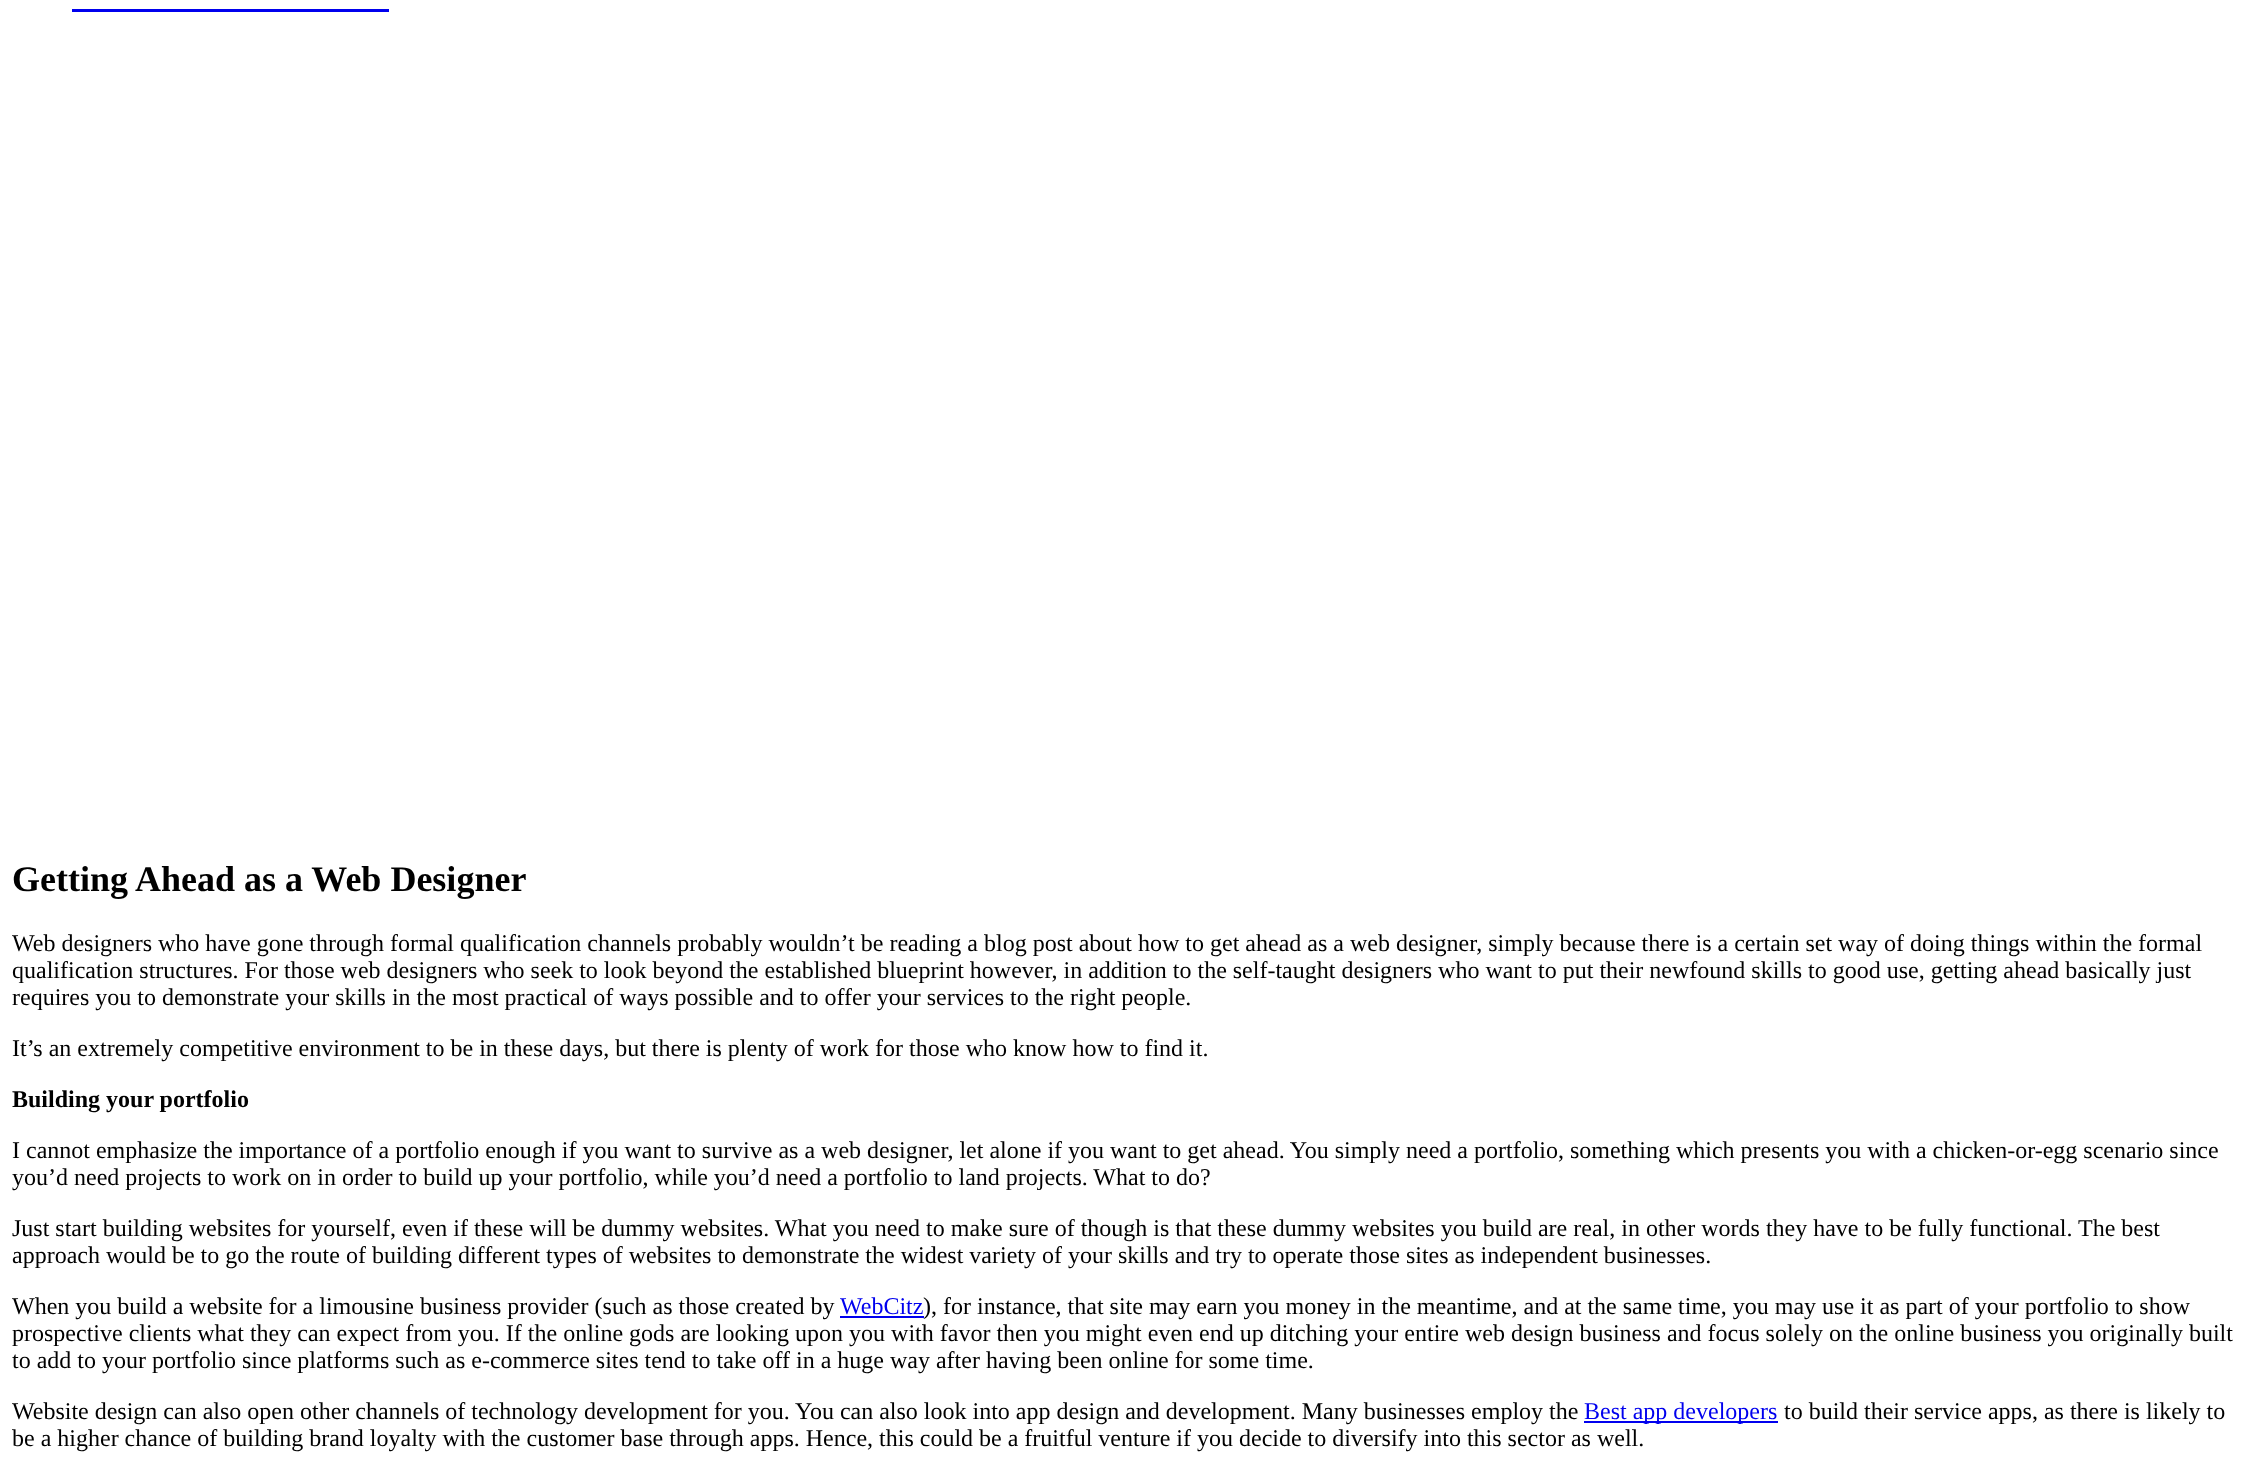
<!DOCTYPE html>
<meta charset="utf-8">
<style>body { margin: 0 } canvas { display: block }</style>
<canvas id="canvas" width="2256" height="1464"></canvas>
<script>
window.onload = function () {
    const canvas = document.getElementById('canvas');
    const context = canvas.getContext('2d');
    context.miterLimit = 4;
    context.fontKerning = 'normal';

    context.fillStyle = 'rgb(255, 255, 255)';
    context.fillRect(0, 0, 2256, 1464);
    context.fillStyle = 'rgb(0, 0, 238)';
    context.fillRect(72, 9, 317, 3);
    context.fillRect(840, 1316, 84, 2);
    context.fillRect(1584, 1421, 194, 2);
    context.font = 'bold 36px Liberation Serif';
    context.fillStyle = 'rgb(0, 0, 0)';
    context.fillText('Getting Ahead as a Web Designer', 12, 891);
    context.font = '24px Liberation Serif';
    context.fillText('Web designers who have gone through formal qualification channels probably wouldn’t be reading a blog post about how to get ahead as a web designer, simply because there is a certain set way of doing things within the formal', 12, 951);
    context.fillText('qualification structures. For those web designers who seek to look beyond the established blueprint however, in addition to the self-taught designers who want to put their newfound skills to good use, getting ahead basically just', 12, 978);
    context.fillText('requires you to demonstrate your skills in the most practical of ways possible and to offer your services to the right people.', 12, 1005);
    context.fillText('It’s an extremely competitive environment to be in these days, but there is plenty of work for those who know how to find it.', 12, 1056);
    context.font = 'bold 24px Liberation Serif';
    context.fillText('Building your portfolio', 12, 1107);
    context.font = '24px Liberation Serif';
    context.fillText('I cannot emphasize the importance of a portfolio enough if you want to survive as a web designer, let alone if you want to get ahead. You simply need a portfolio, something which presents you with a chicken-or-egg scenario since', 12, 1158);
    context.fillText('you’d need projects to work on in order to build up your portfolio, while you’d need a portfolio to land projects. What to do?', 12, 1185);
    context.fillText('Just start building websites for yourself, even if these will be dummy websites. What you need to make sure of though is that these dummy websites you build are real, in other words they have to be fully functional. The best', 12, 1236);
    context.fillText('approach would be to go the route of building different types of websites to demonstrate the widest variety of your skills and try to operate those sites as independent businesses.', 12, 1263);
    context.fillText('When you build a website for a limousine business provider (such as those created by', 12, 1314);
    context.fillStyle = 'rgb(0, 0, 238)';
    context.fillText('WebCitz', 840, 1314);
    context.fillStyle = 'rgb(0, 0, 0)';
    context.fillText('), for instance, that site may earn you money in the meantime, and at the same time, you may use it as part of your portfolio to show', 923, 1314);
    context.fillText('prospective clients what they can expect from you. If the online gods are looking upon you with favor then you might even end up ditching your entire web design business and focus solely on the online business you originally built', 12, 1341);
    context.fillText('to add to your portfolio since platforms such as e-commerce sites tend to take off in a huge way after having been online for some time.', 12, 1368);
    context.fillText('Website design can also open other channels of technology development for you. You can also look into app design and development. Many businesses employ the', 12, 1419);
    context.fillStyle = 'rgb(0, 0, 238)';
    context.fillText('Best app developers', 1584, 1419);
    context.fillStyle = 'rgb(0, 0, 0)';
    context.fillText('to build their service apps, as there is likely to', 1784, 1419);
    context.fillText('be a higher chance of building brand loyalty with the customer base through apps. Hence, this could be a fruitful venture if you decide to diversify into this sector as well.', 12, 1446);
};
</script>
